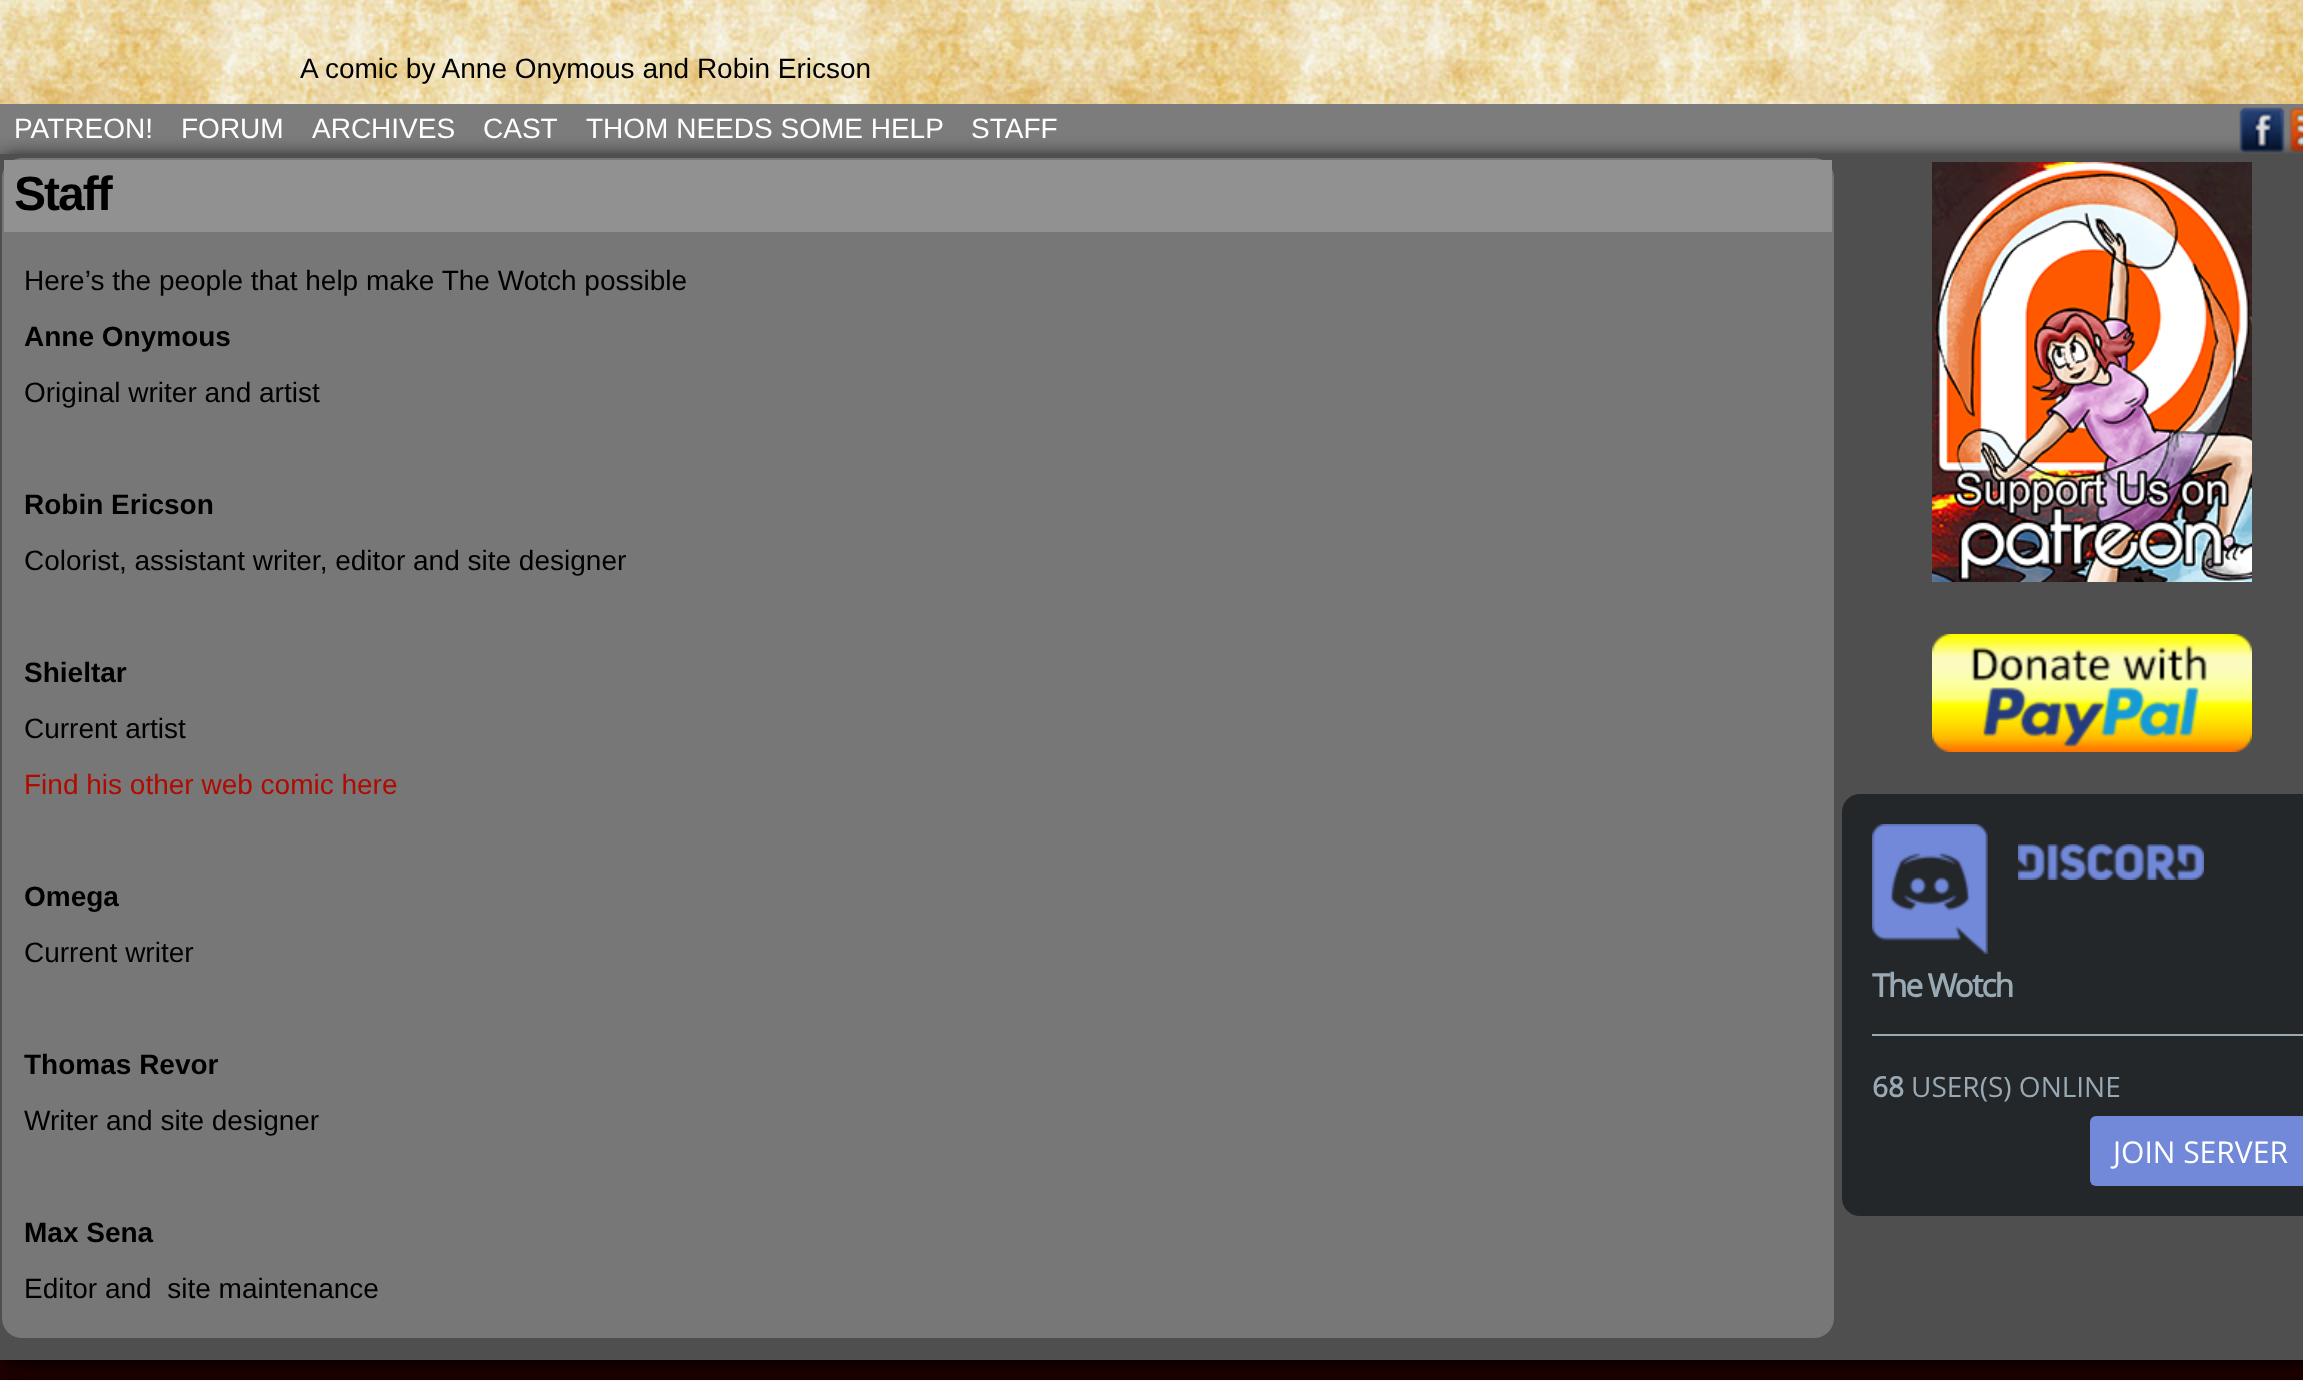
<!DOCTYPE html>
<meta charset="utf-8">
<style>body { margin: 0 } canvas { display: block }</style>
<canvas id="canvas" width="2303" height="1381"></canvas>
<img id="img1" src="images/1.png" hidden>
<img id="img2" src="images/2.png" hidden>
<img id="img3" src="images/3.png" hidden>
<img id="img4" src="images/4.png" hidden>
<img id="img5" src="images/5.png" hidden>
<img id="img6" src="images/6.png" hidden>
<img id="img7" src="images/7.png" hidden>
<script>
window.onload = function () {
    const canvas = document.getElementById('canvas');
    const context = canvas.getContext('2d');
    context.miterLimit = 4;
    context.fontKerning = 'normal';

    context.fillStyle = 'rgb(38, 0, 0)';
    context.fillRect(0, 0, 2303, 1381);
    context.drawImage(document.getElementById('img1'), 0, 0, 2303, 104);
    context.fillStyle = 'rgb(124, 124, 124)';
    context.fillRect(0, 104, 2303, 50);
    context.drawImage(document.getElementById('img2'), 2239, 107, 46, 46);
    context.drawImage(document.getElementById('img3'), 2289, 107, 14, 46);
    context.fillStyle = 'rgb(0, 0, 0)';
    context.filter = 'blur(10px)';
    context.beginPath();
    context.rect(2, 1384, 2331, 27);
    context.fill();
    context.filter = 'none';
    context.fillStyle = 'rgb(255, 255, 255)';
    context.fillRect(0, 1380, 2303, 1);
    context.fillStyle = 'rgb(0, 0, 0)';
    context.filter = 'blur(10px)';
    context.beginPath();
    context.rect(2, 158, 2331, 1206);
    context.fill();
    context.filter = 'none';
    context.fillStyle = 'rgb(79, 79, 79)';
    context.fillRect(0, 154, 2303, 1206);
    context.fillStyle = 'rgb(119, 119, 119)';
    context.beginPath();
    context.roundRect(2, 158, 1832, 1180, 20);
    context.fill();
    context.fillStyle = 'rgb(145, 145, 145)';
    context.fillRect(4, 160, 1828, 72);
    context.drawImage(document.getElementById('img4'), 1932, 162, 320, 420);
    context.drawImage(document.getElementById('img5'), 1932, 634, 320, 118);
    context.fillStyle = 'rgb(35, 39, 42)';
    context.beginPath();
    context.roundRect(1842, 794, 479, 422, 18);
    context.fill();
    context.fillStyle = 'rgb(153, 170, 181)';
    context.fillRect(1872, 1034, 431, 2);
    context.drawImage(document.getElementById('img6'), 1872, 824, 116, 130);
    context.drawImage(document.getElementById('img7'), 2018, 844, 186, 36);
    context.fillStyle = 'rgb(114, 137, 218)';
    context.beginPath();
    context.roundRect(2090, 1116, 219, 70, 6);
    context.fill();
    context.font = '28px Liberation Sans';
    context.fillStyle = 'rgb(0, 0, 0)';
    context.fillText('A comic by Anne Onymous and Robin Ericson', 300, 78);
    context.fillStyle = 'rgb(255, 255, 255)';
    context.fillText('PATREON!', 14, 138);
    context.fillText('FORUM', 181, 138);
    context.fillText('ARCHIVES', 312, 138);
    context.fillText('CAST', 483, 138);
    context.fillText('THOM NEEDS SOME HELP', 586, 138);
    context.fillText('STAFF', 971, 138);
    context.letterSpacing = '-2px';
    context.font = 'bold 48px Liberation Sans';
    context.fillStyle = 'rgb(0, 0, 0)';
    context.fillText('Staff', 14, 210);
    context.letterSpacing = '0px';
    context.font = '28px Liberation Sans';
    context.fillText('Here’s the people that help make The Wotch possible', 24, 290);
    context.font = 'bold 28px Liberation Sans';
    context.fillText('Anne Onymous', 24, 346);
    context.font = '28px Liberation Sans';
    context.fillText('Original writer and artist', 24, 402);
    context.font = 'bold 28px Liberation Sans';
    context.fillText('Robin Ericson', 24, 514);
    context.font = '28px Liberation Sans';
    context.fillText('Colorist, assistant writer, editor and site designer', 24, 570);
    context.font = 'bold 28px Liberation Sans';
    context.fillText('Shieltar', 24, 682);
    context.font = '28px Liberation Sans';
    context.fillText('Current artist', 24, 738);
    context.fillStyle = 'rgb(176, 11, 0)';
    context.fillText('Find his other web comic here', 24, 794);
    context.font = 'bold 28px Liberation Sans';
    context.fillStyle = 'rgb(0, 0, 0)';
    context.fillText('Omega', 24, 906);
    context.font = '28px Liberation Sans';
    context.fillText('Current writer', 24, 962);
    context.font = 'bold 28px Liberation Sans';
    context.fillText('Thomas Revor', 24, 1074);
    context.font = '28px Liberation Sans';
    context.fillText('Writer and site designer', 24, 1130);
    context.font = 'bold 28px Liberation Sans';
    context.fillText('Max Sena', 24, 1242);
    context.font = '28px Liberation Sans';
    context.fillText('Editor and  site maintenance', 24, 1298);
    context.letterSpacing = '-2px';
    context.font = 'bold 32px Open Sans';
    context.fillStyle = 'rgb(153, 170, 181)';
    context.fillText('The Wotch', 1872, 997);
    context.letterSpacing = '0px';
    context.font = 'bold 28px Open Sans';
    context.fillText('68', 1872, 1097);
    context.font = '28px Open Sans';
    context.fillText('USER(S) ONLINE', 1911, 1097);
    context.font = '30px Open Sans';
    context.fillStyle = 'rgb(255, 255, 255)';
    context.fillText('JOIN SERVER', 2113, 1163);
};
</script>
